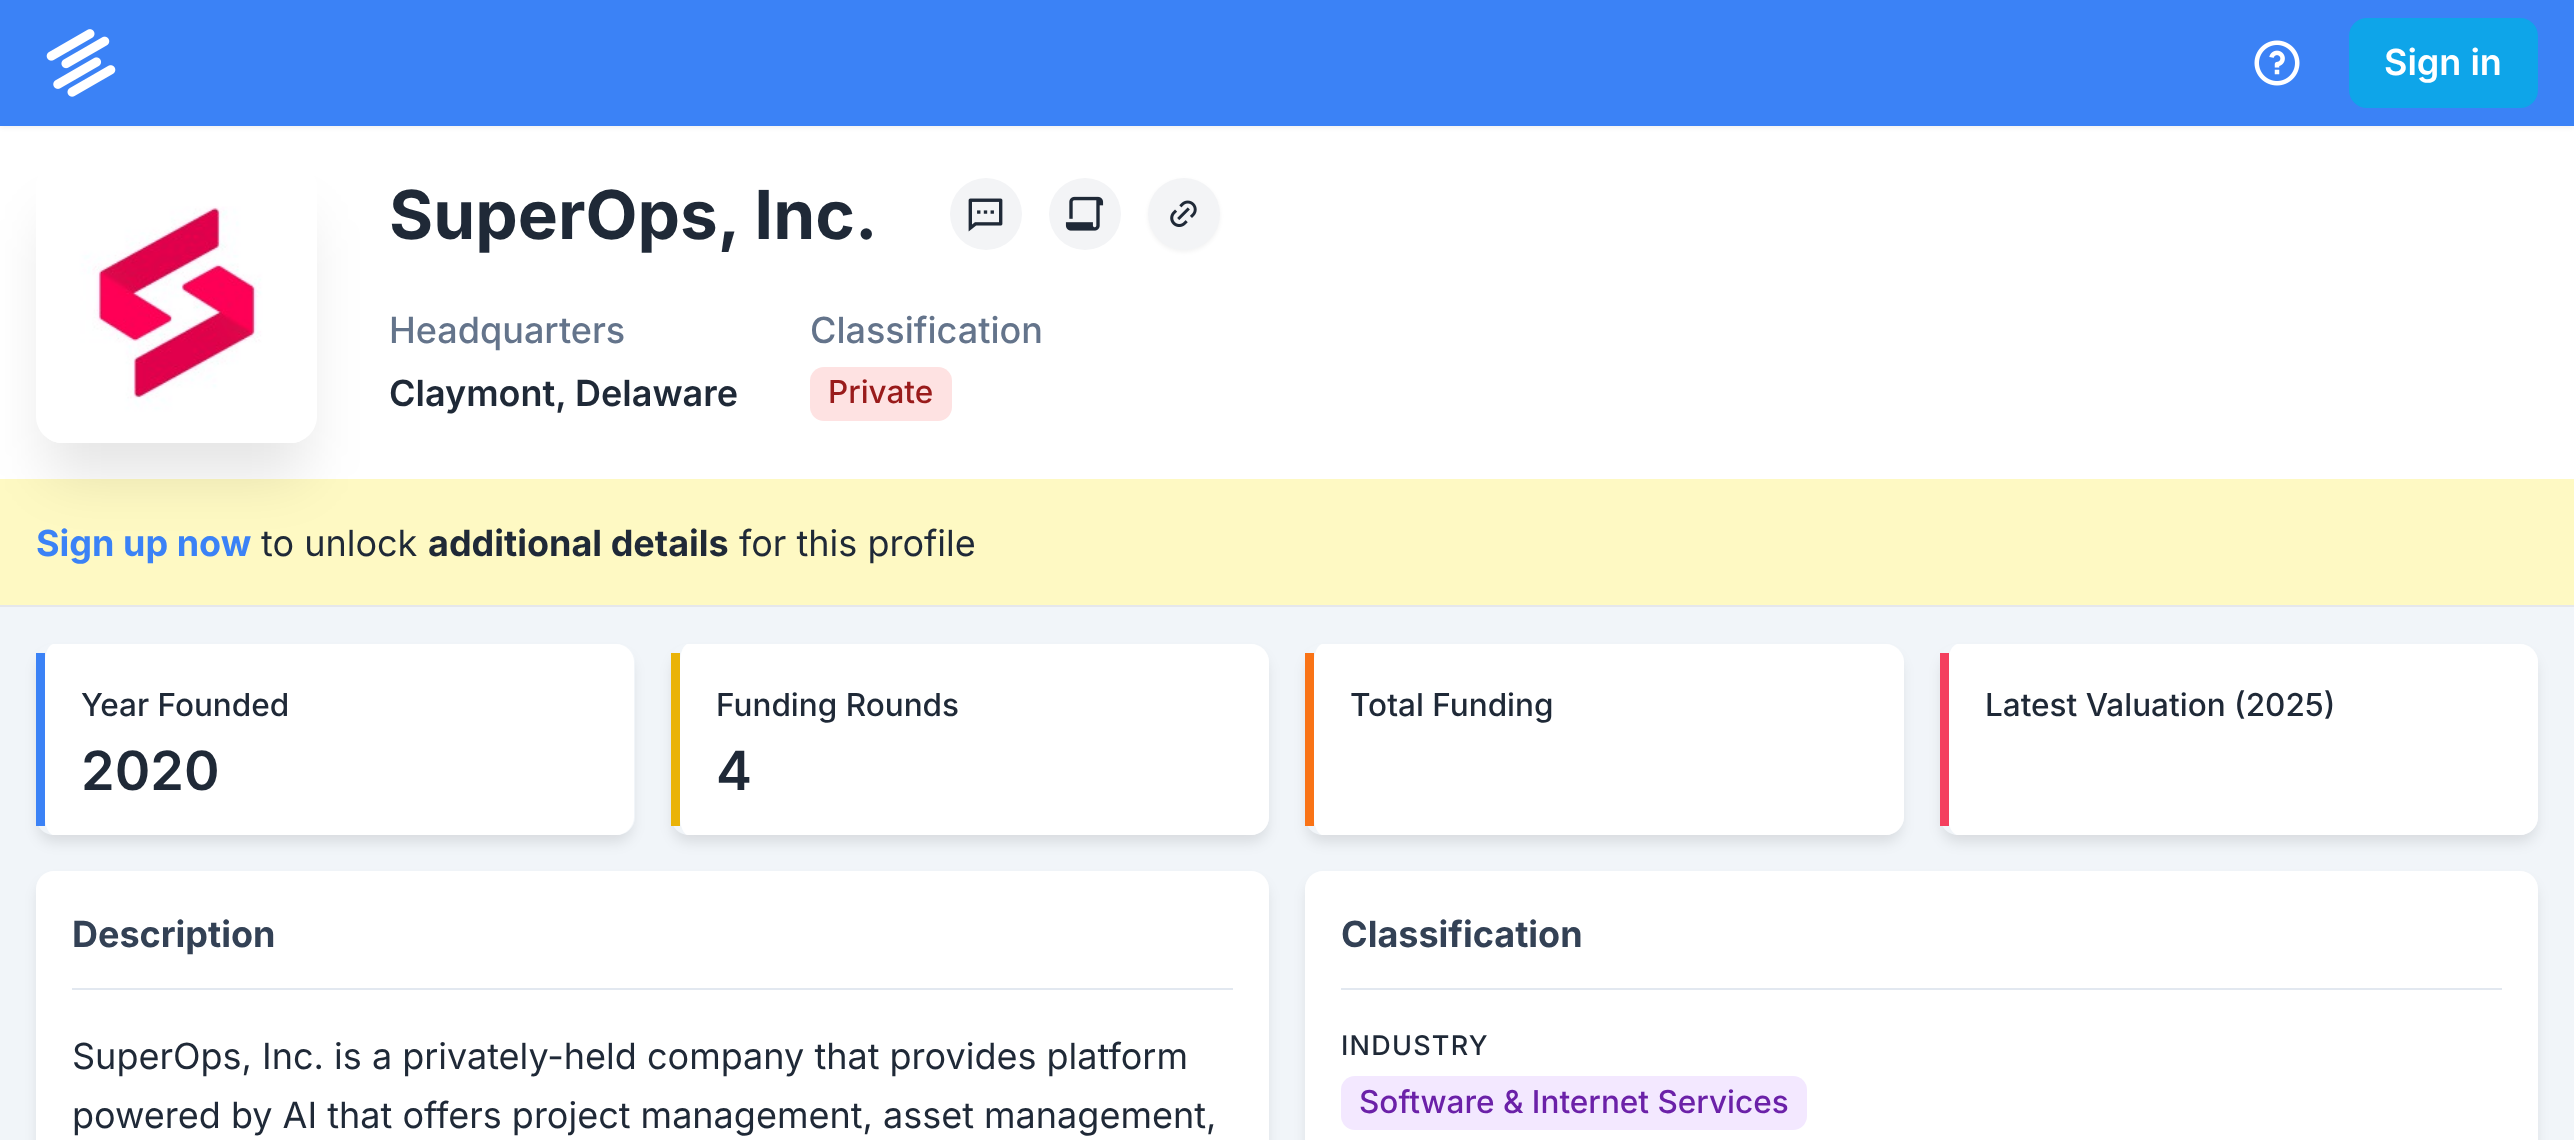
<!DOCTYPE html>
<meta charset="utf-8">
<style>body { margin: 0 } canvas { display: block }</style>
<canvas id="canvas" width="2574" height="1140"></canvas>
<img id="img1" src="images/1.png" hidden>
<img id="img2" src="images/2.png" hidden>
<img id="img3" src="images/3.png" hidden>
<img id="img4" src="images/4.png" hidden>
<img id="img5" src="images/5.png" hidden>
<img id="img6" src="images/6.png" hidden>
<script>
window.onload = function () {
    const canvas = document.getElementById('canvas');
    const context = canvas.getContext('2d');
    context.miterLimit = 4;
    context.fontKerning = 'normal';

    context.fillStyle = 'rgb(255, 255, 255)';
    context.fillRect(0, 0, 2574, 1140);
    context.fillStyle = 'rgba(0, 0, 0, 0.05)';
    context.filter = 'blur(2px)';
    context.beginPath();
    context.rect(0, 2, 2574, 126);
    context.fill();
    context.filter = 'none';
    context.fillStyle = 'rgb(59, 130, 246)';
    context.fillRect(0, 0, 2574, 126);
    context.drawImage(document.getElementById('img1'), 46, 29, 70, 68);
    context.drawImage(document.getElementById('img2'), 2254, 40, 46, 46);
    context.fillStyle = 'rgb(14, 165, 233)';
    context.beginPath();
    context.roundRect(2349, 18, 189, 90, 18);
    context.fill();
    context.fillStyle = 'rgb(254, 249, 195)';
    context.fillRect(0, 479, 2574, 126);
    context.save();
    context.beginPath();
    context.moveTo(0, 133);
    context.lineTo(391, 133);
    context.lineTo(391, 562);
    context.lineTo(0, 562);
    context.closePath();
    context.moveTo(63, 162);
    context.lineTo(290, 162);
    context.bezierCurveTo(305, 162, 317, 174, 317, 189);
    context.lineTo(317, 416);
    context.bezierCurveTo(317, 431, 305, 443, 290, 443);
    context.lineTo(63, 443);
    context.bezierCurveTo(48, 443, 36, 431, 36, 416);
    context.lineTo(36, 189);
    context.bezierCurveTo(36, 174, 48, 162, 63, 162);
    context.closePath();
    context.clip('evenodd');
    context.fillStyle = 'rgba(0, 0, 0, 0.1)';
    context.filter = 'blur(28px)';
    context.beginPath();
    context.roundRect(47, 218, 259, 259, 16);
    context.fill();
    context.filter = 'none';
    context.restore();
    context.drawImage(document.getElementById('img3'), 49, 206, 251, 237);
    context.fillStyle = 'rgb(243, 244, 246)';
    context.beginPath();
    context.arc(986, 214, 36, 0, 2 * Math.PI);
    context.fill();
    context.drawImage(document.getElementById('img4'), 968, 198, 35, 34);
    context.beginPath();
    context.arc(1085, 214, 36, 0, 2 * Math.PI);
    context.fill();
    context.drawImage(document.getElementById('img5'), 1065, 196, 39, 35);
    context.fillStyle = 'rgba(0, 0, 0, 0.05)';
    context.filter = 'blur(2px)';
    context.beginPath();
    context.roundRect(1148, 180, 72, 72, 36);
    context.fill();
    context.filter = 'none';
    context.fillStyle = 'rgb(243, 244, 246)';
    context.beginPath();
    context.arc(1184, 214, 36, 0, 2 * Math.PI);
    context.fill();
    context.drawImage(document.getElementById('img6'), 1170, 200, 27, 27);
    context.fillStyle = 'rgb(254, 226, 226)';
    context.beginPath();
    context.roundRect(810, 367, 142, 54, 14);
    context.fill();
    context.fillStyle = 'rgb(241, 245, 249)';
    context.fillRect(0, 607, 2574, 533);
    context.fillStyle = 'rgb(229, 231, 235)';
    context.fillRect(0, 605, 2574, 2);
    context.save();
    context.beginPath();
    context.moveTo(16, 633);
    context.lineTo(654, 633);
    context.lineTo(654, 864);
    context.lineTo(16, 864);
    context.closePath();
    context.moveTo(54, 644);
    context.lineTo(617, 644);
    context.bezierCurveTo(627, 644, 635, 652, 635, 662);
    context.lineTo(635, 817);
    context.bezierCurveTo(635, 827, 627, 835, 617, 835);
    context.lineTo(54, 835);
    context.bezierCurveTo(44, 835, 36, 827, 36, 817);
    context.lineTo(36, 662);
    context.bezierCurveTo(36, 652, 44, 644, 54, 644);
    context.closePath();
    context.clip('evenodd');
    context.fillStyle = 'rgba(0, 0, 0, 0.1)';
    context.filter = 'blur(7px)';
    context.beginPath();
    context.roundRect(38, 655, 594, 187, 16);
    context.fill();
    context.filter = 'none';
    context.restore();
    context.fillStyle = 'rgb(255, 255, 255)';
    context.beginPath();
    context.moveTo(54, 644);
    context.lineTo(616, 644);
    context.bezierCurveTo(626, 644, 634, 652, 634, 662);
    context.lineTo(634, 817);
    context.bezierCurveTo(634, 827, 626, 835, 616, 835);
    context.lineTo(54, 835);
    context.bezierCurveTo(49, 835, 45, 827, 45, 817);
    context.lineTo(45, 662);
    context.bezierCurveTo(45, 652, 49, 644, 54, 644);
    context.closePath();
    context.fill();
    context.fillStyle = 'rgb(59, 130, 246)';
    context.fillRect(36, 653, 9, 173);
    context.save();
    context.beginPath();
    context.moveTo(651, 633);
    context.lineTo(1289, 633);
    context.lineTo(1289, 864);
    context.lineTo(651, 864);
    context.closePath();
    context.moveTo(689, 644);
    context.lineTo(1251, 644);
    context.bezierCurveTo(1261, 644, 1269, 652, 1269, 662);
    context.lineTo(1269, 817);
    context.bezierCurveTo(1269, 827, 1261, 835, 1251, 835);
    context.lineTo(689, 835);
    context.bezierCurveTo(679, 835, 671, 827, 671, 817);
    context.lineTo(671, 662);
    context.bezierCurveTo(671, 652, 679, 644, 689, 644);
    context.closePath();
    context.clip('evenodd');
    context.fillStyle = 'rgba(0, 0, 0, 0.1)';
    context.filter = 'blur(7px)';
    context.beginPath();
    context.roundRect(673, 655, 594, 187, 16);
    context.fill();
    context.filter = 'none';
    context.restore();
    context.fillStyle = 'rgb(255, 255, 255)';
    context.beginPath();
    context.moveTo(688, 644);
    context.lineTo(1251, 644);
    context.bezierCurveTo(1261, 644, 1269, 652, 1269, 662);
    context.lineTo(1269, 817);
    context.bezierCurveTo(1269, 827, 1261, 835, 1251, 835);
    context.lineTo(688, 835);
    context.bezierCurveTo(684, 835, 680, 827, 680, 817);
    context.lineTo(680, 662);
    context.bezierCurveTo(680, 652, 684, 644, 688, 644);
    context.closePath();
    context.fill();
    context.fillStyle = 'rgb(234, 179, 8)';
    context.fillRect(671, 653, 9, 173);
    context.save();
    context.beginPath();
    context.moveTo(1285, 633);
    context.lineTo(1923, 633);
    context.lineTo(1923, 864);
    context.lineTo(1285, 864);
    context.closePath();
    context.moveTo(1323, 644);
    context.lineTo(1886, 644);
    context.bezierCurveTo(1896, 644, 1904, 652, 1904, 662);
    context.lineTo(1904, 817);
    context.bezierCurveTo(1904, 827, 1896, 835, 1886, 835);
    context.lineTo(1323, 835);
    context.bezierCurveTo(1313, 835, 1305, 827, 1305, 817);
    context.lineTo(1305, 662);
    context.bezierCurveTo(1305, 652, 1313, 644, 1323, 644);
    context.closePath();
    context.clip('evenodd');
    context.fillStyle = 'rgba(0, 0, 0, 0.1)';
    context.filter = 'blur(7px)';
    context.beginPath();
    context.roundRect(1307, 655, 594, 187, 16);
    context.fill();
    context.filter = 'none';
    context.restore();
    context.fillStyle = 'rgb(255, 255, 255)';
    context.beginPath();
    context.moveTo(1323, 644);
    context.lineTo(1886, 644);
    context.bezierCurveTo(1895, 644, 1904, 652, 1904, 662);
    context.lineTo(1904, 817);
    context.bezierCurveTo(1904, 827, 1895, 835, 1886, 835);
    context.lineTo(1323, 835);
    context.bezierCurveTo(1318, 835, 1314, 827, 1314, 817);
    context.lineTo(1314, 662);
    context.bezierCurveTo(1314, 652, 1318, 644, 1323, 644);
    context.closePath();
    context.fill();
    context.fillStyle = 'rgb(249, 115, 22)';
    context.fillRect(1305, 653, 9, 173);
    context.save();
    context.beginPath();
    context.moveTo(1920, 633);
    context.lineTo(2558, 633);
    context.lineTo(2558, 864);
    context.lineTo(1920, 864);
    context.closePath();
    context.moveTo(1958, 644);
    context.lineTo(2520, 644);
    context.bezierCurveTo(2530, 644, 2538, 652, 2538, 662);
    context.lineTo(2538, 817);
    context.bezierCurveTo(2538, 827, 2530, 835, 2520, 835);
    context.lineTo(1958, 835);
    context.bezierCurveTo(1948, 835, 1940, 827, 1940, 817);
    context.lineTo(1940, 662);
    context.bezierCurveTo(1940, 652, 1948, 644, 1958, 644);
    context.closePath();
    context.clip('evenodd');
    context.fillStyle = 'rgba(0, 0, 0, 0.1)';
    context.filter = 'blur(7px)';
    context.beginPath();
    context.roundRect(1942, 655, 594, 187, 16);
    context.fill();
    context.filter = 'none';
    context.restore();
    context.fillStyle = 'rgb(255, 255, 255)';
    context.beginPath();
    context.moveTo(1958, 644);
    context.lineTo(2520, 644);
    context.bezierCurveTo(2530, 644, 2538, 652, 2538, 662);
    context.lineTo(2538, 817);
    context.bezierCurveTo(2538, 827, 2530, 835, 2520, 835);
    context.lineTo(1958, 835);
    context.bezierCurveTo(1953, 835, 1948, 827, 1948, 817);
    context.lineTo(1948, 662);
    context.bezierCurveTo(1948, 652, 1953, 644, 1958, 644);
    context.closePath();
    context.fill();
    context.fillStyle = 'rgb(244, 63, 94)';
    context.fillRect(1940, 653, 9, 173);
    context.fillStyle = 'rgba(0, 0, 0, 0.1)';
    context.filter = 'blur(7px)';
    context.beginPath();
    context.roundRect(38, 882, 1229, 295, 16);
    context.fill();
    context.filter = 'none';
    context.fillStyle = 'rgb(255, 255, 255)';
    context.beginPath();
    context.moveTo(54, 871);
    context.lineTo(1251, 871);
    context.bezierCurveTo(1261, 871, 1269, 879, 1269, 889);
    context.lineTo(1269, 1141);
    context.lineTo(36, 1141);
    context.lineTo(36, 889);
    context.bezierCurveTo(36, 879, 44, 871, 54, 871);
    context.closePath();
    context.fill();
    context.fillStyle = 'rgb(226, 232, 240)';
    context.fillRect(72, 988, 1161, 2);
    context.fillStyle = 'rgba(0, 0, 0, 0.1)';
    context.filter = 'blur(7px)';
    context.beginPath();
    context.roundRect(1307, 882, 1229, 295, 16);
    context.fill();
    context.filter = 'none';
    context.fillStyle = 'rgb(255, 255, 255)';
    context.beginPath();
    context.moveTo(1323, 871);
    context.lineTo(2520, 871);
    context.bezierCurveTo(2530, 871, 2538, 879, 2538, 889);
    context.lineTo(2538, 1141);
    context.lineTo(1305, 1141);
    context.lineTo(1305, 889);
    context.bezierCurveTo(1305, 879, 1313, 871, 1323, 871);
    context.closePath();
    context.fill();
    context.fillStyle = 'rgb(226, 232, 240)';
    context.fillRect(1341, 988, 1161, 2);
    context.fillStyle = 'rgb(243, 232, 255)';
    context.beginPath();
    context.roundRect(1341, 1076, 466, 54, 14);
    context.fill();
    context.font = '600 36px Inter';
    context.fillStyle = 'rgb(255, 255, 255)';
    context.fillText('Sign in', 2384, 75);
    context.font = 'bold 67.5px Inter';
    context.fillStyle = 'rgb(31, 41, 55)';
    context.fillText('SuperOps, Inc.', 389, 239);
    context.font = '500 36px Inter';
    context.fillStyle = 'rgb(100, 116, 139)';
    context.fillText('Headquarters', 389, 343);
    context.font = '600 36px Inter';
    context.fillStyle = 'rgb(31, 41, 55)';
    context.fillText('Claymont, Delaware', 389, 406);
    context.font = '500 36px Inter';
    context.fillStyle = 'rgb(100, 116, 139)';
    context.fillText('Classification', 810, 343);
    context.font = '500 31.5px Inter';
    context.fillStyle = 'rgb(153, 27, 27)';
    context.fillText('Private', 828, 403);
    context.font = 'bold 36px Inter';
    context.fillStyle = 'rgb(59, 130, 246)';
    context.fillText('Sign up now', 36, 556);
    context.font = '36px Inter';
    context.fillStyle = 'rgb(31, 41, 55)';
    context.fillText('to unlock', 261, 556);
    context.font = 'bold 36px Inter';
    context.fillText('additional details', 428, 556);
    context.font = '36px Inter';
    context.fillText('for this profile', 739, 556);
    context.font = '500 31.5px Inter';
    context.fillText('Year Founded', 81, 716);
    context.font = '600 54px Inter';
    context.fillText('2020', 81, 790);
    context.font = '500 31.5px Inter';
    context.fillText('Funding Rounds', 716, 716);
    context.font = '600 54px Inter';
    context.fillText('4', 716, 790);
    context.font = '500 31.5px Inter';
    context.fillText('Total Funding', 1350, 716);
    context.fillText('Latest Valuation (2025)', 1985, 716);
    context.font = 'bold 36px Inter';
    context.fillStyle = 'rgb(51, 65, 85)';
    context.fillText('Description', 72, 947);
    context.font = '36px Inter';
    context.fillStyle = 'rgb(31, 41, 55)';
    context.fillText('SuperOps, Inc. is a privately-held company that provides platform', 72, 1069);
    context.fillText('powered by AI that offers project management, asset management,', 72, 1128);
    context.font = 'bold 36px Inter';
    context.fillStyle = 'rgb(51, 65, 85)';
    context.fillText('Classification', 1341, 947);
    context.letterSpacing = '1.25px';
    context.font = '500 27px Inter';
    context.fillStyle = 'rgb(31, 41, 55)';
    context.fillText('INDUSTRY', 1341, 1055);
    context.letterSpacing = '0px';
    context.font = '500 31.5px Inter';
    context.fillStyle = 'rgb(107, 33, 168)';
    context.fillText('Software & Internet Services', 1359, 1113);
};
</script>
